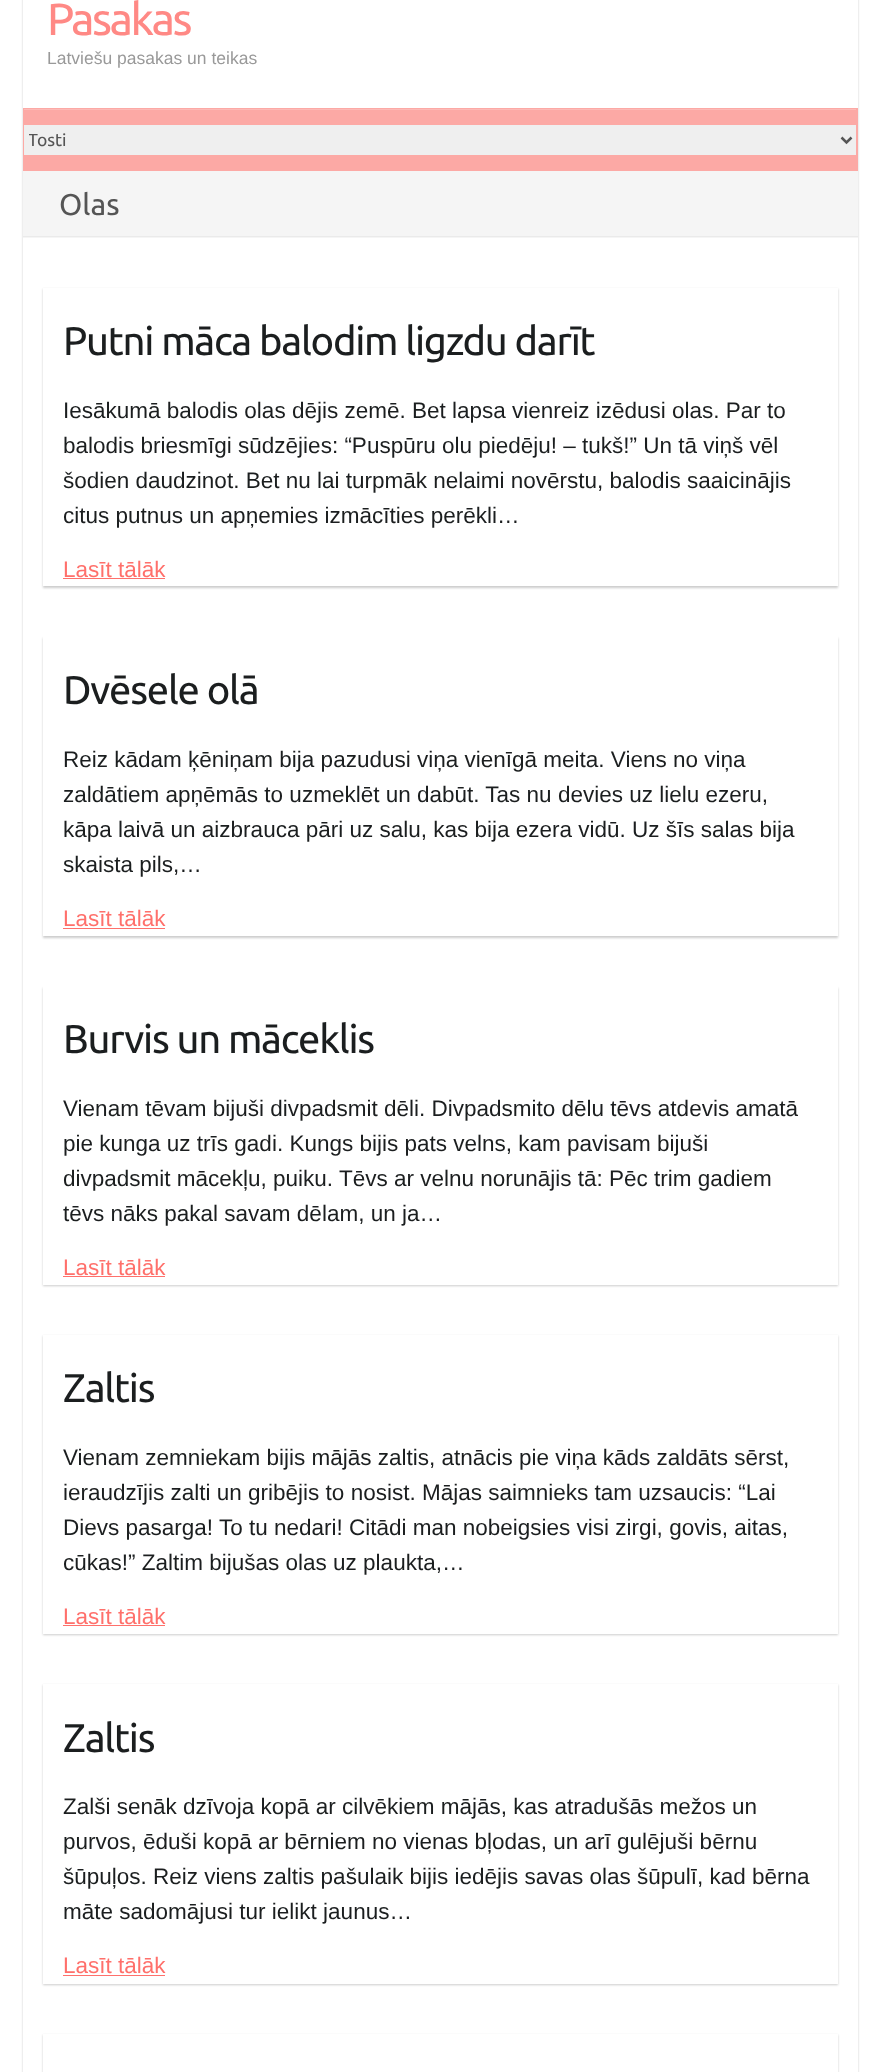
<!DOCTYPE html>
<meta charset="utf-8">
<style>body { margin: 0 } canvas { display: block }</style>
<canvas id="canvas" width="880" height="2072"></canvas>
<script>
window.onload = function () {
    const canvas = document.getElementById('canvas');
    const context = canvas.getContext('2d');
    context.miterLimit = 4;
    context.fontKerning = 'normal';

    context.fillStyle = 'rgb(255, 255, 255)';
    context.fillRect(0, 0, 880, 2072);
    context.fillStyle = 'rgba(0, 0, 0, 0.2)';
    context.filter = 'blur(1px)';
    context.beginPath();
    context.roundRect(23, -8, 835, 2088, 5);
    context.fill();
    context.filter = 'none';
    context.fillStyle = 'rgb(255, 255, 255)';
    context.fillRect(23, 0, 835, 2072);
    context.fillStyle = 'rgb(252, 169, 165)';
    context.fillRect(23, 108, 835, 63);
    context.fillStyle = 'rgb(253, 186, 183)';
    context.fillRect(24, 109, 832, 1);
    context.fillStyle = 'rgb(239, 239, 239)';
    context.fillRect(24, 125, 832, 30);
    context.beginPath();
    context.moveTo(841.5, 137.5);
    context.lineTo(846.5, 142.5);
    context.lineTo(851.5, 137.5);
    context.strokeStyle = 'rgb(85, 85, 85)';
    context.lineWidth = 2.5;
    context.stroke();
    context.fillStyle = 'rgb(245, 245, 245)';
    context.fillRect(23, 171, 835, 67);
    context.fillStyle = 'rgb(234, 234, 234)';
    context.fillRect(23, 236, 835, 1);
    context.fillStyle = 'rgba(0, 0, 0, 0.2)';
    context.filter = 'blur(1px)';
    context.beginPath();
    context.rect(43, 289, 795, 299);
    context.fill();
    context.filter = 'none';
    context.fillStyle = 'rgb(255, 255, 255)';
    context.fillRect(43, 288, 795, 298);
    context.fillStyle = 'rgb(255, 112, 107)';
    context.fillRect(63, 578, 102, 1);
    context.fillStyle = 'rgba(0, 0, 0, 0.2)';
    context.filter = 'blur(1px)';
    context.beginPath();
    context.rect(43, 638, 795, 300);
    context.fill();
    context.filter = 'none';
    context.fillStyle = 'rgb(255, 255, 255)';
    context.fillRect(43, 636, 795, 300);
    context.fillStyle = 'rgb(255, 112, 107)';
    context.fillRect(63, 928, 102, 1);
    context.fillStyle = 'rgba(0, 0, 0, 0.2)';
    context.filter = 'blur(1px)';
    context.beginPath();
    context.rect(43, 988, 795, 298);
    context.fill();
    context.filter = 'none';
    context.fillStyle = 'rgb(255, 255, 255)';
    context.fillRect(43, 986, 795, 299);
    context.fillStyle = 'rgb(255, 112, 107)';
    context.fillRect(63, 1276, 102, 1);
    context.fillStyle = 'rgba(0, 0, 0, 0.2)';
    context.filter = 'blur(1px)';
    context.beginPath();
    context.rect(43, 1336, 795, 299);
    context.fill();
    context.filter = 'none';
    context.fillStyle = 'rgb(255, 255, 255)';
    context.fillRect(43, 1335, 795, 299);
    context.fillStyle = 'rgb(255, 112, 107)';
    context.fillRect(63, 1625, 102, 1);
    context.fillStyle = 'rgba(0, 0, 0, 0.2)';
    context.filter = 'blur(1px)';
    context.beginPath();
    context.rect(43, 1685, 795, 300);
    context.fill();
    context.filter = 'none';
    context.fillStyle = 'rgb(255, 255, 255)';
    context.fillRect(43, 1684, 795, 300);
    context.fillStyle = 'rgb(255, 112, 107)';
    context.fillRect(63, 1975, 102, 1);
    context.fillStyle = 'rgba(0, 0, 0, 0.2)';
    context.filter = 'blur(1px)';
    context.beginPath();
    context.rect(43, 2035, 795, 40);
    context.fill();
    context.filter = 'none';
    context.fillStyle = 'rgb(255, 255, 255)';
    context.fillRect(43, 2034, 795, 38);
    context.letterSpacing = '-2.5px';
    context.font = '45px Ubuntu';
    context.fillStyle = 'rgb(255, 137, 133)';
    context.fillText('Pasakas', 47, 35);
    context.letterSpacing = '0px';
    context.font = '17.5px Liberation Sans';
    context.fillStyle = 'rgb(153, 153, 153)';
    context.fillText('Latviešu pasakas un teikas', 47, 64);
    context.save();
    context.beginPath();
    context.rect(29, 129, 807, 22);
    context.clip();
    context.font = '17.5px Ubuntu';
    context.fillStyle = 'rgb(85, 85, 85)';
    context.fillText('Tosti', 28, 146);
    context.restore();
    context.font = '30px Ubuntu';
    context.fillStyle = 'rgb(85, 85, 85)';
    context.fillText('Olas', 59, 215);
    context.letterSpacing = '-1.25px';
    context.font = '40px Ubuntu';
    context.fillStyle = 'rgb(27, 30, 31)';
    context.fillText('Putni māca balodim ligzdu darīt', 63, 355);
    context.letterSpacing = '0px';
    context.font = '22.5px Liberation Sans';
    context.fillText('Iesākumā balodis olas dējis zemē. Bet lapsa vienreiz izēdusi olas. Par to', 63, 418);
    context.fillText('balodis briesmīgi sūdzējies: “Puspūru olu piedēju! – tukš!” Un tā viņš vēl', 63, 453);
    context.fillText('šodien daudzinot. Bet nu lai turpmāk nelaimi novērstu, balodis saaicinājis', 63, 488);
    context.fillText('citus putnus un apņemies izmācīties perēkli…', 63, 523);
    context.fillStyle = 'rgb(255, 112, 107)';
    context.fillText('Lasīt tālāk', 63, 577);
    context.letterSpacing = '-1.25px';
    context.font = '40px Ubuntu';
    context.fillStyle = 'rgb(27, 30, 31)';
    context.fillText('Dvēsele olā', 63, 704);
    context.letterSpacing = '0px';
    context.font = '22.5px Liberation Sans';
    context.fillText('Reiz kādam ķēniņam bija pazudusi viņa vienīgā meita. Viens no viņa', 63, 767);
    context.fillText('zaldātiem apņēmās to uzmeklēt un dabūt. Tas nu devies uz lielu ezeru,', 63, 802);
    context.fillText('kāpa laivā un aizbrauca pāri uz salu, kas bija ezera vidū. Uz šīs salas bija', 63, 837);
    context.fillText('skaista pils,…', 63, 872);
    context.fillStyle = 'rgb(255, 112, 107)';
    context.fillText('Lasīt tālāk', 63, 926);
    context.letterSpacing = '-1.25px';
    context.font = '40px Ubuntu';
    context.fillStyle = 'rgb(27, 30, 31)';
    context.fillText('Burvis un māceklis', 63, 1053);
    context.letterSpacing = '0px';
    context.font = '22.5px Liberation Sans';
    context.fillText('Vienam tēvam bijuši divpadsmit dēli. Divpadsmito dēlu tēvs atdevis amatā', 63, 1116);
    context.fillText('pie kunga uz trīs gadi. Kungs bijis pats velns, kam pavisam bijuši', 63, 1151);
    context.fillText('divpadsmit mācekļu, puiku. Tēvs ar velnu norunājis tā: Pēc trim gadiem', 63, 1186);
    context.fillText('tēvs nāks pakal savam dēlam, un ja…', 63, 1221);
    context.fillStyle = 'rgb(255, 112, 107)';
    context.fillText('Lasīt tālāk', 63, 1275);
    context.letterSpacing = '-1.25px';
    context.font = '40px Ubuntu';
    context.fillStyle = 'rgb(27, 30, 31)';
    context.fillText('Zaltis', 63, 1402);
    context.letterSpacing = '0px';
    context.font = '22.5px Liberation Sans';
    context.fillText('Vienam zemniekam bijis mājās zaltis, atnācis pie viņa kāds zaldāts sērst,', 63, 1465);
    context.fillText('ieraudzījis zalti un gribējis to nosist. Mājas saimnieks tam uzsaucis: “Lai', 63, 1500);
    context.fillText('Dievs pasarga! To tu nedari! Citādi man nobeigsies visi zirgi, govis, aitas,', 63, 1535);
    context.fillText('cūkas!” Zaltim bijušas olas uz plaukta,…', 63, 1570);
    context.fillStyle = 'rgb(255, 112, 107)';
    context.fillText('Lasīt tālāk', 63, 1624);
    context.letterSpacing = '-1.25px';
    context.font = '40px Ubuntu';
    context.fillStyle = 'rgb(27, 30, 31)';
    context.fillText('Zaltis', 63, 1752);
    context.letterSpacing = '0px';
    context.font = '22.5px Liberation Sans';
    context.fillText('Zalši senāk dzīvoja kopā ar cilvēkiem mājās, kas atradušās mežos un', 63, 1814);
    context.fillText('purvos, ēduši kopā ar bērniem no vienas bļodas, un arī gulējuši bērnu', 63, 1849);
    context.fillText('šūpuļos. Reiz viens zaltis pašulaik bijis iedējis savas olas šūpulī, kad bērna', 63, 1884);
    context.fillText('māte sadomājusi tur ielikt jaunus…', 63, 1919);
    context.fillStyle = 'rgb(255, 112, 107)';
    context.fillText('Lasīt tālāk', 63, 1973);
};
</script>
